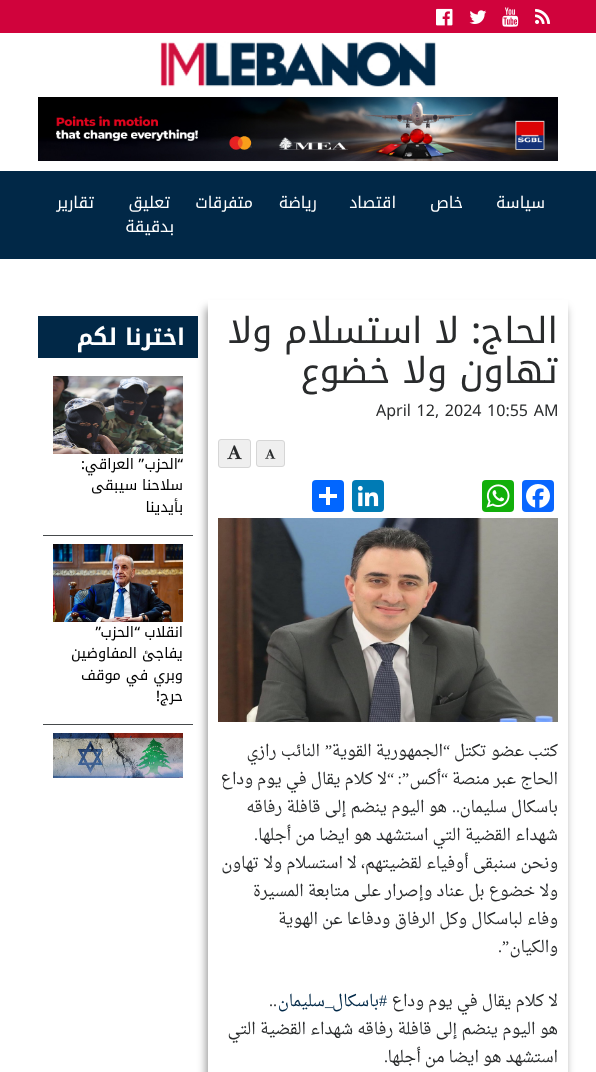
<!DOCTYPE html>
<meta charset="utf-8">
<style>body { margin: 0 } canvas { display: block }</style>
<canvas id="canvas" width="596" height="1072"></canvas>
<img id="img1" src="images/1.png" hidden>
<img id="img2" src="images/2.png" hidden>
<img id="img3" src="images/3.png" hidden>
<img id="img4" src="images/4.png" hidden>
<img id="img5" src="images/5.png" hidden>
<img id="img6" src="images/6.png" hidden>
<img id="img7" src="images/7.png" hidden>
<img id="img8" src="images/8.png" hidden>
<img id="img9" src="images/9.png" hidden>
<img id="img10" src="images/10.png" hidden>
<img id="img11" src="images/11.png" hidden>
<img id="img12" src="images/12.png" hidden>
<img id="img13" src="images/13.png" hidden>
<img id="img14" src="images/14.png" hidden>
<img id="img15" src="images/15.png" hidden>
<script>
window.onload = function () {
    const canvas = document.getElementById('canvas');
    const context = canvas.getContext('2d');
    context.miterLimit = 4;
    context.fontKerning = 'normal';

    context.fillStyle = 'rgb(255, 255, 255)';
    context.fillRect(0, 0, 596, 1072);
    context.fillStyle = 'rgb(208, 3, 60)';
    context.fillRect(0, 0, 596, 33);
    context.drawImage(document.getElementById('img1'), 535, 8, 16, 16);
    context.drawImage(document.getElementById('img2'), 502, 7, 17, 20);
    context.drawImage(document.getElementById('img3'), 469, 10, 18, 14);
    context.drawImage(document.getElementById('img4'), 436, 8, 17, 18);
    context.drawImage(document.getElementById('img5'), 160, 41, 276, 46);
    context.drawImage(document.getElementById('img6'), 38, 97, 520, 64);
    context.fillStyle = 'rgb(1, 40, 71)';
    context.fillRect(0, 171, 596, 88);
    context.save();
    context.beginPath();
    context.moveTo(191, 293);
    context.lineTo(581, 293);
    context.lineTo(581, 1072);
    context.lineTo(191, 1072);
    context.closePath();
    context.moveTo(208, 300);
    context.lineTo(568, 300);
    context.lineTo(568, 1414);
    context.lineTo(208, 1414);
    context.closePath();
    context.clip('evenodd');
    context.fillStyle = 'rgba(0, 0, 0, 0.4)';
    context.filter = 'blur(4.5px)';
    context.beginPath();
    context.rect(206, 308, 360, 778);
    context.fill();
    context.filter = 'none';
    context.restore();
    context.fillStyle = 'rgb(239, 239, 239)';
    context.beginPath();
    context.roundRect(256.5, 440.5, 28, 26, 2.5);
    context.fill();
    context.strokeStyle = 'rgb(214, 214, 214)';
    context.stroke();
    context.drawImage(document.getElementById('img7'), 265, 449, 11, 10);
    context.beginPath();
    context.roundRect(218.5, 439.5, 32, 28, 2.5);
    context.fill();
    context.stroke();
    context.drawImage(document.getElementById('img8'), 227, 445, 15, 15);
    context.fillStyle = 'rgb(8, 102, 255)';
    context.beginPath();
    context.roundRect(522, 480, 32, 32, 4);
    context.fill();
    context.drawImage(document.getElementById('img9'), 526, 484, 24, 24);
    context.fillStyle = 'rgb(18, 175, 10)';
    context.beginPath();
    context.roundRect(482, 480, 32, 32, 4);
    context.fill();
    context.drawImage(document.getElementById('img10'), 486, 484, 24, 24);
    context.fillStyle = 'rgb(0, 123, 181)';
    context.beginPath();
    context.roundRect(352, 480, 32, 32, 4);
    context.fill();
    context.drawImage(document.getElementById('img11'), 357, 485, 22, 22);
    context.fillStyle = 'rgb(1, 102, 255)';
    context.beginPath();
    context.roundRect(312, 480, 32, 32, 4);
    context.fill();
    context.fillStyle = 'rgb(255, 255, 255)';
    context.fillRect(326, 487, 4, 18);
    context.fillRect(319, 494, 18, 4);
    context.drawImage(document.getElementById('img12'), 218, 518, 340, 204);
    context.fillStyle = 'rgb(1, 40, 71)';
    context.fillRect(38, 316, 160, 42);
    context.fillStyle = 'rgb(70, 74, 76)';
    context.fillRect(43, 535, 150, 1);
    context.drawImage(document.getElementById('img13'), 53, 376, 130, 78);
    context.fillRect(43, 724, 150, 1);
    context.drawImage(document.getElementById('img14'), 53, 544, 130, 78);
    context.drawImage(document.getElementById('img15'), 53, 733, 130, 45);
    context.direction = 'rtl';
    context.font = '16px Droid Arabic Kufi';
    context.fillStyle = 'rgb(255, 255, 255)';
    context.fillText('سياسة', 545, 208);
    context.fillText('خاص', 463, 208);
    context.fillText('اقتصاد', 396, 208);
    context.fillText('رياضة', 317, 208);
    context.fillText('متفرقات', 253, 208);
    context.fillText('تعليق', 170, 208);
    context.fillText('بدقيقة', 174, 232);
    context.fillText('تقارير', 94, 208);
    context.font = '36px Droid Arabic Kufi';
    context.fillStyle = 'rgb(41, 43, 44)';
    context.fillText('الحاج', 558, 343);
    context.font = '500 36px Noto Sans';
    context.fillText(':', 481, 343);
    context.font = '36px Droid Arabic Kufi';
    context.fillText('لا استسلام ولا', 459, 343);
    context.fillText('تهاون ولا خضوع', 558, 383);
    context.wordSpacing = '1.5px';
    context.direction = 'ltr';
    context.font = '16px Noto Sans';
    context.fillText('April 12, 2024 10:55 AM', 376, 416);
    context.wordSpacing = '0px';
    context.direction = 'rtl';
    context.font = '16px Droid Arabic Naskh';
    context.fillText('كتب عضو تكتل', 558, 756);
    context.font = '16px Liberation Serif';
    context.fillText('“', 450, 756);
    context.font = '16px Droid Arabic Naskh';
    context.fillText('الجمهورية القوية', 443, 756);
    context.font = '16px Liberation Serif';
    context.fillText('”', 332, 756);
    context.font = '16px Droid Arabic Naskh';
    context.fillText('النائب رازي', 320, 756);
    context.fillText('الحاج عبر منصة', 558, 784);
    context.font = '16px Liberation Serif';
    context.fillText('“', 448, 784);
    context.font = '16px Droid Arabic Naskh';
    context.fillText('أكس', 441, 784);
    context.font = '16px Liberation Serif';
    context.fillText('”:', 409, 784);
    context.fillText('“', 394, 784);
    context.font = '16px Droid Arabic Naskh';
    context.fillText('لا كلام يقال في يوم وداع', 387, 784);
    context.fillText('باسكال سليمان', 558, 812);
    context.font = '16px Liberation Serif';
    context.fillText('..', 460, 812);
    context.font = '16px Droid Arabic Naskh';
    context.fillText('هو اليوم ينضم إلى قافلة رفاقه', 447, 812);
    context.fillText('شهداء القضية التي استشهد هو ايضا من أجلها', 558, 840);
    context.font = '16px Liberation Serif';
    context.fillText('.', 258, 840);
    context.font = '16px Droid Arabic Naskh';
    context.fillText('ونحن سنبقى أوفياء لقضيتهم، لا استسلام ولا تهاون', 558, 868);
    context.fillText('ولا خضوع بل عناد وإصرار على متابعة المسيرة', 558, 896);
    context.fillText('وفاء لباسكال وكل الرفاق ودفاعا عن الهوية', 558, 924);
    context.fillText('والكيان', 558, 952);
    context.font = '16px Liberation Serif';
    context.fillText('”.', 509, 952);
    context.font = '16px Droid Arabic Naskh';
    context.fillText('لا كلام يقال في يوم وداع', 558, 1006);
    context.font = '16px Liberation Serif';
    context.fillStyle = 'rgb(1, 40, 71)';
    context.fillText('#', 387, 1006);
    context.font = '16px Droid Arabic Naskh';
    context.fillText('باسكال', 379, 1006);
    context.fillText('سليمان', 325, 1006);
    context.direction = 'ltr';
    context.font = '16px Liberation Serif';
    context.fillStyle = 'rgb(41, 43, 44)';
    context.fillText('..', 269, 1006);
    context.direction = 'rtl';
    context.fillStyle = 'rgb(1, 40, 71)';
    context.fillText('_', 333, 1006);
    context.font = '16px Droid Arabic Naskh';
    context.fillStyle = 'rgb(41, 43, 44)';
    context.fillText('هو اليوم ينضم إلى قافلة رفاقه شهداء القضية التي', 558, 1034);
    context.fillText('استشهد هو ايضا من أجلها', 558, 1062);
    context.font = '16px Liberation Serif';
    context.fillText('.', 388, 1062);
    context.font = 'bold 23px Droid Arabic Kufi';
    context.fillStyle = 'rgb(255, 255, 255)';
    context.fillText('اخترنا لكم', 185, 345);
    context.font = '500 14.5px Noto Sans';
    context.fillStyle = 'rgb(0, 0, 0)';
    context.fillText('“', 183, 469);
    context.font = '14.5px Droid Arabic Kufi';
    context.fillText('الحزب', 178, 469);
    context.font = '500 14.5px Noto Sans';
    context.fillText('”', 144, 469);
    context.font = '14.5px Droid Arabic Kufi';
    context.fillText('العراقي', 134, 469);
    context.font = '500 14.5px Noto Sans';
    context.fillText(':', 85, 469);
    context.font = '14.5px Droid Arabic Kufi';
    context.fillText('سلاحنا سيبقى', 183, 490);
    context.fillText('بأيدينا', 183, 512);
    context.fillText('انقلاب', 183, 637);
    context.font = '500 14.5px Noto Sans';
    context.fillText('“', 140, 637);
    context.font = '14.5px Droid Arabic Kufi';
    context.fillText('الحزب', 134, 637);
    context.font = '500 14.5px Noto Sans';
    context.fillText('”', 101, 637);
    context.font = '14.5px Droid Arabic Kufi';
    context.fillText('يفاجئ المفاوضين', 183, 658);
    context.fillText('وبري في موقف', 183, 680);
    context.fillText('حرج', 183, 701);
    context.font = '500 14.5px Noto Sans';
    context.fillText('!', 160, 701);
};
</script>
